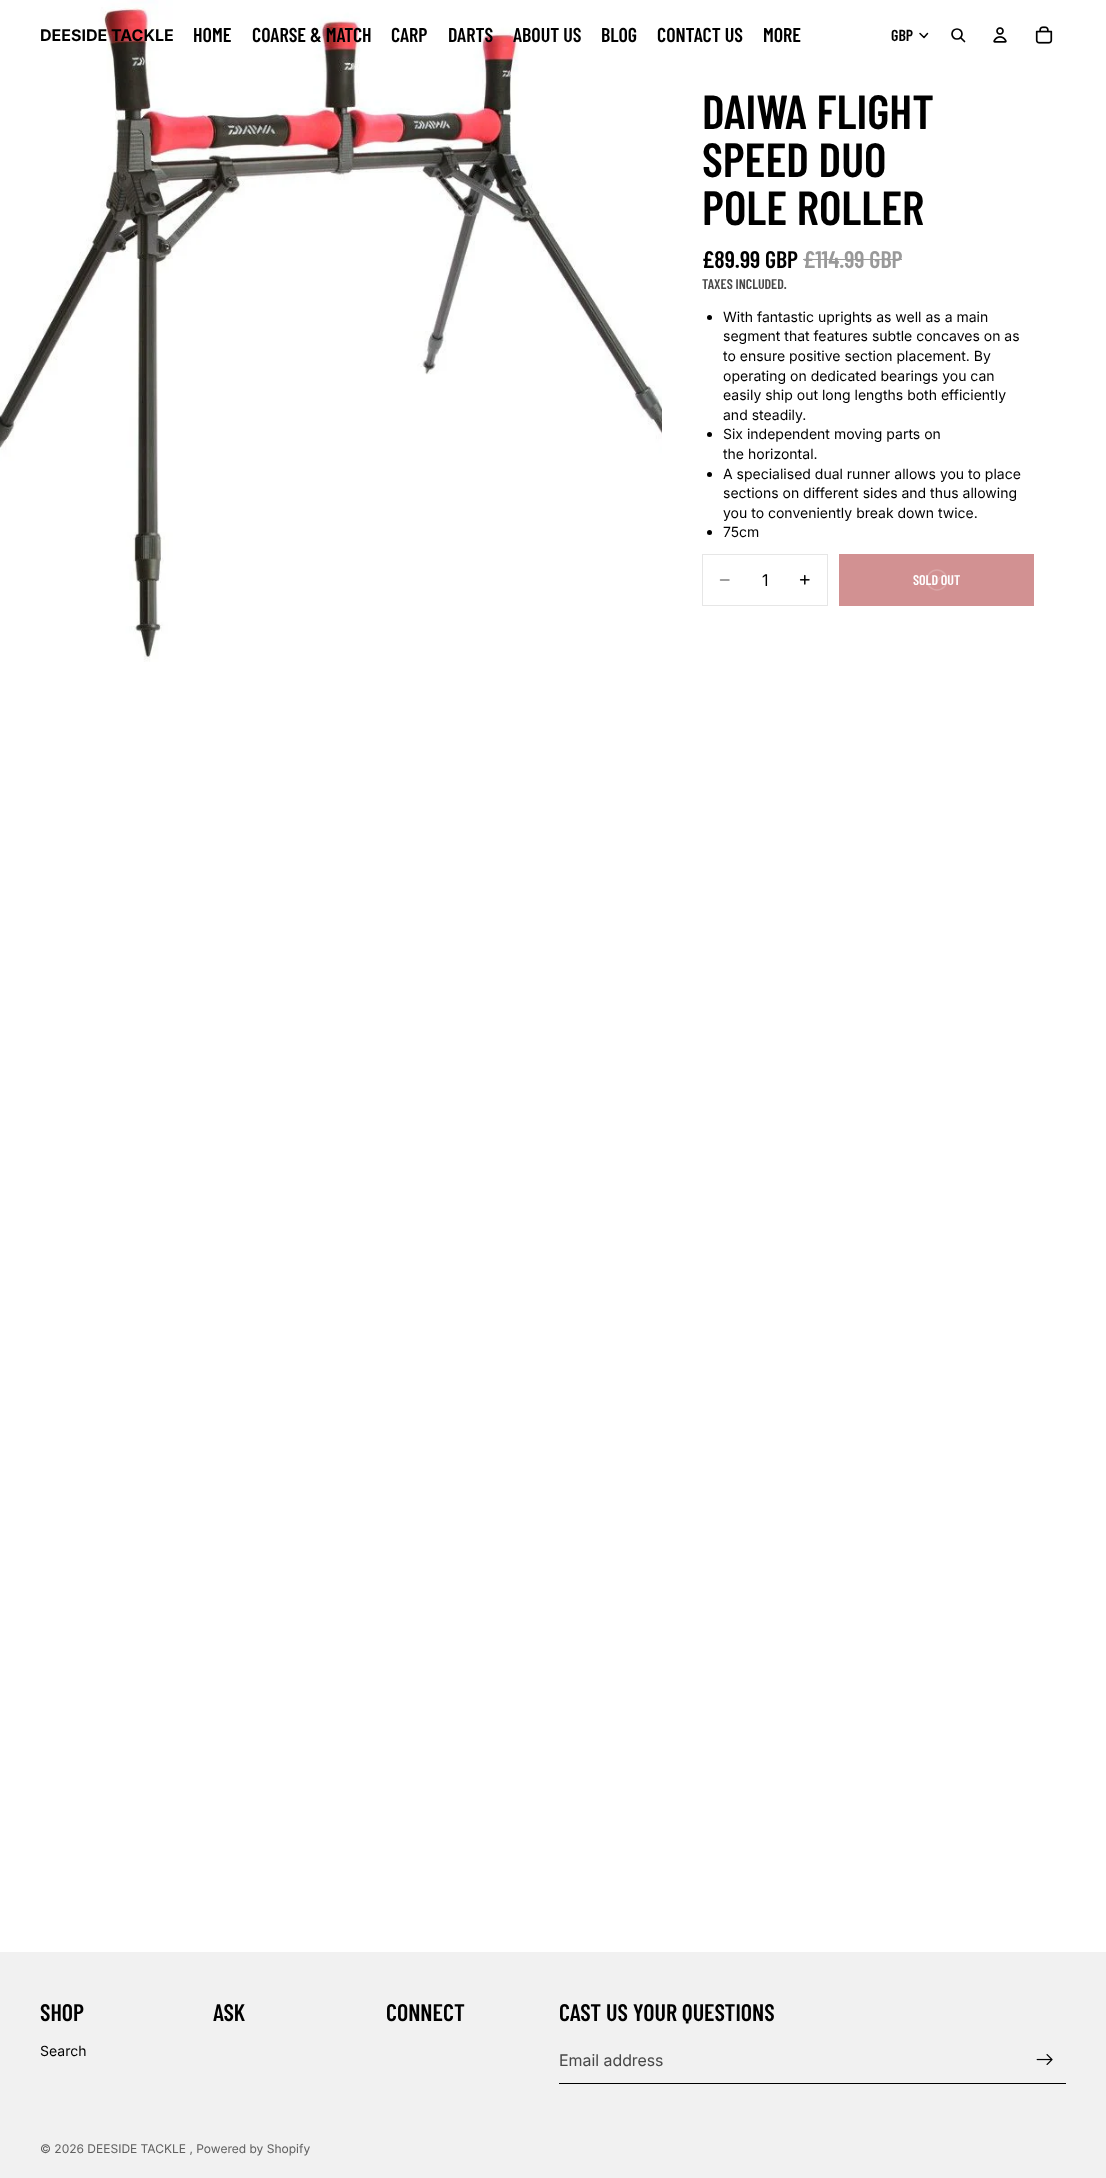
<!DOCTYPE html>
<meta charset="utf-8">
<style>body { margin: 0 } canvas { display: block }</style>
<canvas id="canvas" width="1106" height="2178"></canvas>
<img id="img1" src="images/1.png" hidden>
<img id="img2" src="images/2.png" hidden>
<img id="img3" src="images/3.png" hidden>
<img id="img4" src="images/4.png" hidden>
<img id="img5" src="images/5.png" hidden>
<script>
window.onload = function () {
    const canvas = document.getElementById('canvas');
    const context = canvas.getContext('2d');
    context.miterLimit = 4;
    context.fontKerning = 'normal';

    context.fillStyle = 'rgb(255, 255, 255)';
    context.fillRect(0, 0, 1106, 2178);
    context.beginPath();
    context.moveTo(927.5, 33.5);
    context.lineTo(924, 37.5);
    context.lineTo(920, 33.5);
    context.strokeStyle = 'rgb(0, 0, 0)';
    context.lineWidth = 1.5;
    context.lineCap = 'round';
    context.lineJoin = 'round';
    context.stroke();
    context.beginPath();
    context.arc(957, 34, 5, 0, 2 * Math.PI);
    context.lineWidth = 1.7;
    context.stroke();
    context.beginPath();
    context.moveTo(961, 38);
    context.lineTo(964.5, 41.5);
    context.stroke();
    context.drawImage(document.getElementById('img1'), 993, 27, 14, 16);
    context.drawImage(document.getElementById('img2'), 1035, 26, 18, 18);
    context.drawImage(document.getElementById('img3'), 0, 0, 662, 662);
    context.fillStyle = 'rgb(153, 153, 153)';
    context.fillRect(803, 259, 99, 1);
    context.fillStyle = 'rgb(0, 0, 0)';
    context.beginPath();
    context.arc(709.5, 317.5, 2.5, 0, 2 * Math.PI);
    context.fill();
    context.beginPath();
    context.arc(709.5, 434.5, 2.5, 0, 2 * Math.PI);
    context.fill();
    context.beginPath();
    context.arc(709.5, 474.5, 2.5, 0, 2 * Math.PI);
    context.fill();
    context.beginPath();
    context.arc(709.5, 532.5, 2.5, 0, 2 * Math.PI);
    context.fill();
    context.strokeStyle = 'rgb(230, 230, 230)';
    context.lineWidth = 1;
    context.lineJoin = 'miter';
    context.strokeRect(702.5, 554.5, 125, 51);
    context.beginPath();
    context.moveTo(720.5, 580);
    context.lineTo(729, 580);
    context.strokeStyle = 'rgb(128, 128, 128)';
    context.lineWidth = 1.5;
    context.stroke();
    context.drawImage(document.getElementById('img4'), 799, 574, 11, 11);
    context.fillStyle = 'rgb(210, 145, 146)';
    context.fillRect(839, 554, 195, 52);
    context.fillStyle = 'rgb(241, 241, 241)';
    context.fillRect(0, 1952, 1106, 226);
    context.fillStyle = 'rgb(0, 0, 0)';
    context.fillRect(559, 2083, 507, 1);
    context.drawImage(document.getElementById('img5'), 1036, 2054, 17, 11);
    context.font = 'bold 16px Inter';
    context.fillText('DEESIDE TACKLE', 40, 41);
    context.font = '600 20px Barlow Condensed';
    context.fillText('HOME', 193, 42);
    context.fillText('COARSE & MATCH', 252, 42);
    context.fillText('CARP', 391, 42);
    context.fillText('DARTS', 448, 42);
    context.fillText('ABOUT US', 513, 42);
    context.fillText('BLOG', 601, 42);
    context.fillText('CONTACT US', 657, 42);
    context.fillText('MORE', 763, 42);
    context.font = '600 16px Barlow Condensed';
    context.fillText('GBP', 891, 41);
    context.font = '600 48px Barlow Condensed';
    context.fillText('DAIWA FLIGHT', 702, 129);
    context.fillText('SPEED DUO', 702, 177);
    context.fillText('POLE ROLLER', 702, 225);
    context.font = '600 24px Barlow Condensed';
    context.fillText('£89.99 GBP', 702, 268);
    context.fillStyle = 'rgb(153, 153, 153)';
    context.fillText('£114.99 GBP', 803, 268);
    context.font = '600 14px Barlow Condensed';
    context.fillStyle = 'rgb(72, 72, 72)';
    context.fillText('TAXES INCLUDED.', 702, 289);
    context.font = '14px "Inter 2"';
    context.fillStyle = 'rgb(0, 0, 0)';
    context.fillText('With fantastic uprights as well as a main', 723, 322);
    context.fillText('segment that features subtle concaves on as', 723, 341);
    context.fillText('to ensure positive section placement. By', 723, 361);
    context.fillText('operating on dedicated bearings you can', 723, 381);
    context.fillText('easily ship out long lengths both efficiently', 723, 400);
    context.fillText('and steadily.', 723, 420);
    context.fillText('Six independent moving parts on', 723, 439);
    context.fillText('the horizontal.', 723, 459);
    context.fillText('A specialised dual runner allows you to place', 723, 479);
    context.fillText('sections on different sides and thus allowing', 723, 498);
    context.fillText('you to conveniently break down twice.', 723, 518);
    context.fillText('75cm', 723, 537);
    context.font = '16px Inter';
    context.fillText('1', 762, 586);
    context.font = '600 14px Barlow Condensed';
    context.fillStyle = 'rgb(255, 255, 255)';
    context.fillText('SOLD OUT', 913, 585);
    context.beginPath();
    context.arc(937, 580, 10, 0, 2 * Math.PI);
    context.strokeStyle = 'rgba(255, 255, 255, 0.2)';
    context.stroke();
    context.beginPath();
    context.moveTo(934, 580.5);
    context.lineTo(936, 583);
    context.lineTo(940, 577.5);
    context.lineJoin = 'round';
    context.stroke();
    context.font = '600 24px Barlow Condensed';
    context.fillStyle = 'rgb(0, 0, 0)';
    context.fillText('SHOP', 40, 2021);
    context.font = '14px "Inter 2"';
    context.fillText('Search', 40, 2056);
    context.font = '600 24px Barlow Condensed';
    context.fillText('ASK', 213, 2021);
    context.fillText('CONNECT', 386, 2021);
    context.fillText('CAST US YOUR QUESTIONS', 559, 2021);
    context.font = '16px Inter';
    context.fillStyle = 'rgb(72, 72, 72)';
    context.fillText('Email address', 559, 2066);
    context.font = '12px "Inter 2"';
    context.fillStyle = 'rgb(96, 96, 96)';
    context.fillText('© 2026 DEESIDE TACKLE , Powered by Shopify', 40, 2153);
};
</script>
